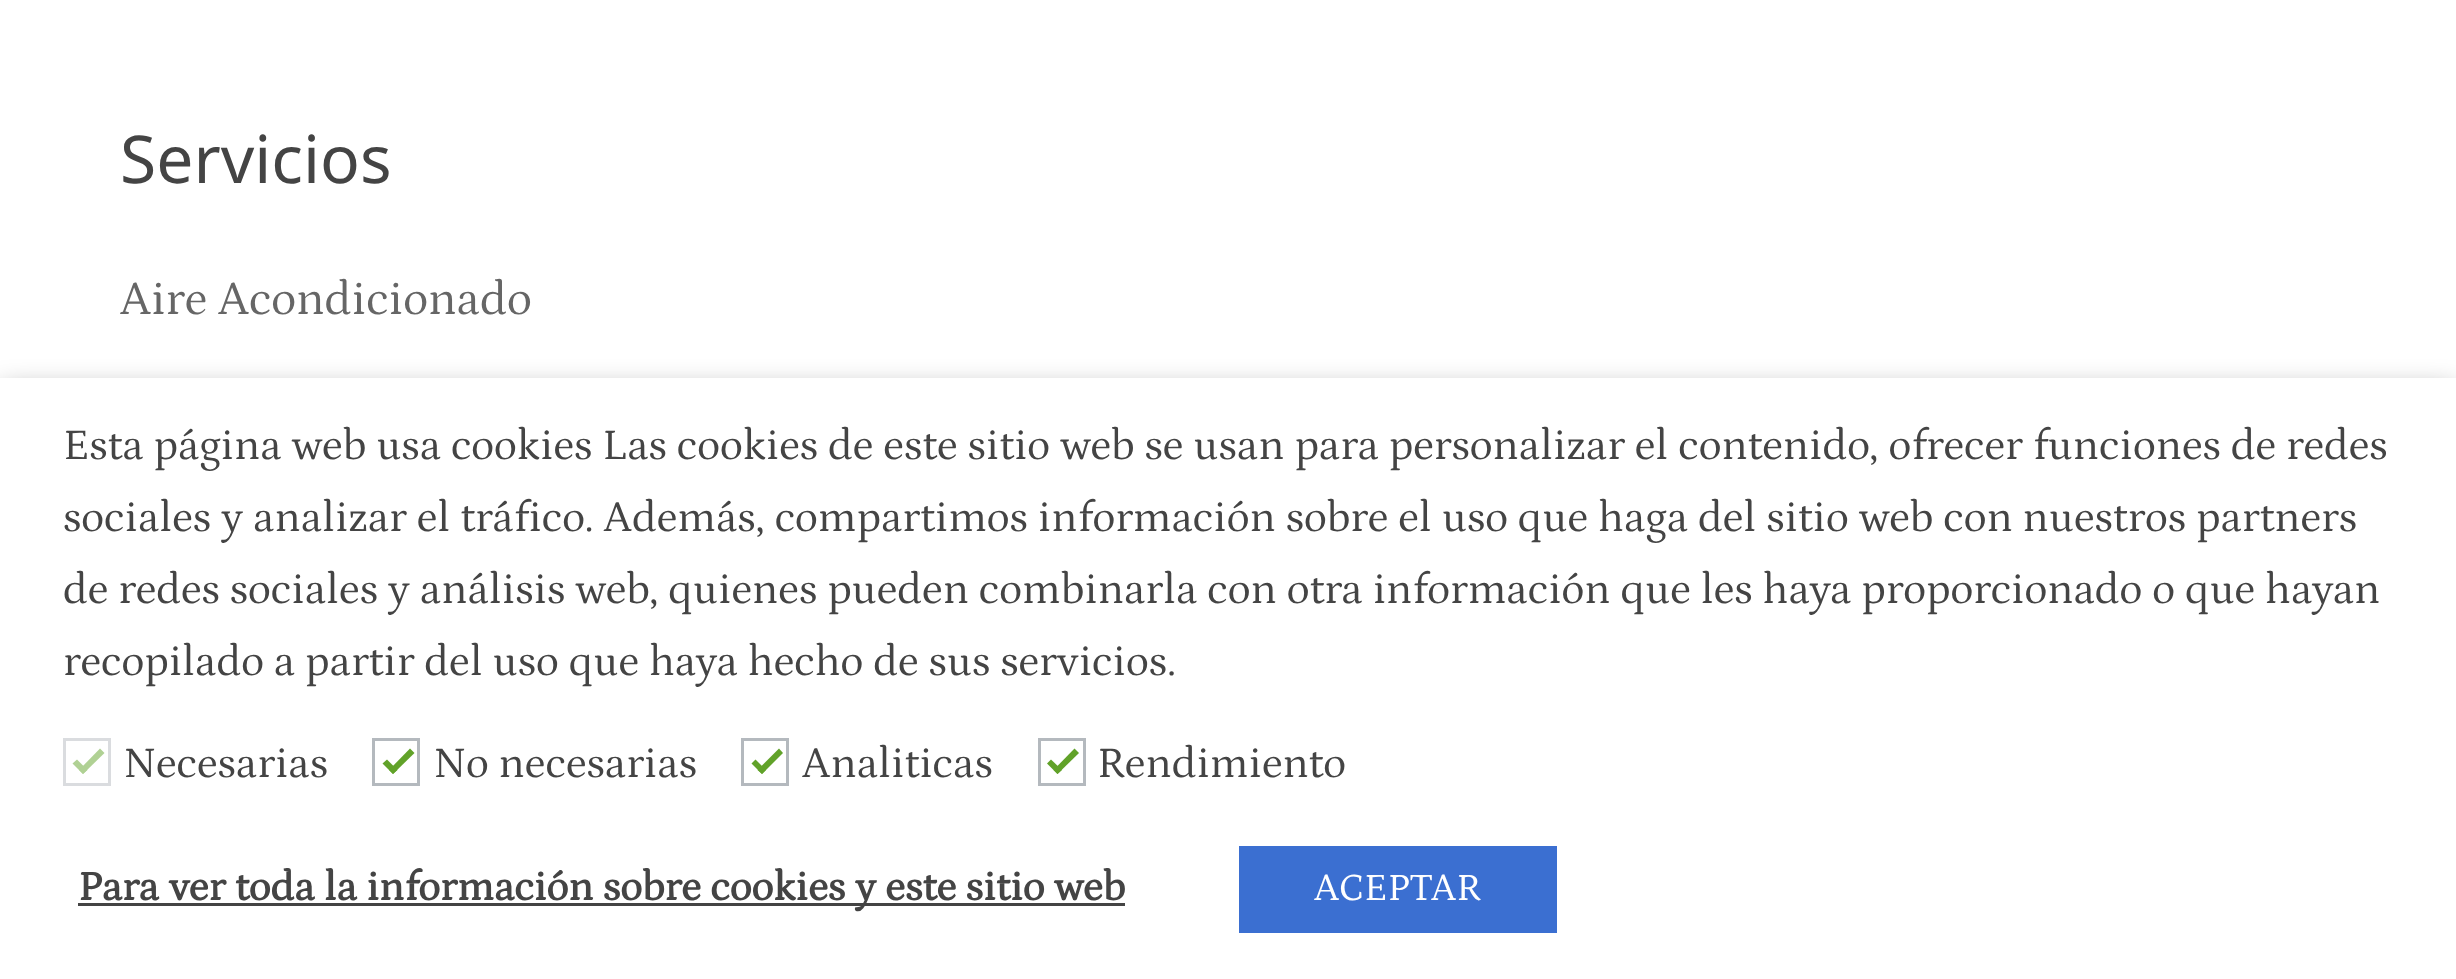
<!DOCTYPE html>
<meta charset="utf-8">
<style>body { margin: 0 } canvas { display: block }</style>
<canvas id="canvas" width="2456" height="979"></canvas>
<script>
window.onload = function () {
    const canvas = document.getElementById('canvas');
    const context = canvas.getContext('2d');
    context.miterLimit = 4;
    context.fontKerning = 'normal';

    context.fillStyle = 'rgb(255, 255, 255)';
    context.fillRect(0, 0, 2456, 979);
    context.fillStyle = 'rgba(0, 0, 0, 0.5)';
    context.filter = 'blur(15px)';
    context.beginPath();
    context.rect(0, 393, 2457, 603);
    context.fill();
    context.filter = 'none';
    context.fillStyle = 'rgb(255, 255, 255)';
    context.fillRect(0, 378, 2456, 601);
    context.strokeStyle = 'rgb(218, 220, 223)';
    context.lineWidth = 3;
    context.strokeRect(64.5, 739.5, 45, 45);
    context.fillStyle = 'rgb(176, 209, 148)';
    context.beginPath();
    context.moveTo(100, 748.5);
    context.lineTo(104.5, 753);
    context.lineTo(83, 774);
    context.lineTo(79, 770);
    context.closePath();
    context.fill();
    context.beginPath();
    context.moveTo(77, 759.5);
    context.lineTo(87.5, 770);
    context.lineTo(83, 774);
    context.lineTo(72.5, 763.5);
    context.closePath();
    context.fill();
    context.strokeStyle = 'rgb(180, 185, 190)';
    context.strokeRect(373.5, 739.5, 45, 45);
    context.fillStyle = 'rgb(97, 162, 41)';
    context.beginPath();
    context.moveTo(410, 748.5);
    context.lineTo(414.5, 753);
    context.lineTo(393, 774);
    context.lineTo(389, 770);
    context.closePath();
    context.fill();
    context.beginPath();
    context.moveTo(387, 759.5);
    context.lineTo(397.5, 770);
    context.lineTo(393, 774);
    context.lineTo(382.5, 763.5);
    context.closePath();
    context.fill();
    context.strokeRect(742.5, 739.5, 45, 45);
    context.beginPath();
    context.moveTo(779, 748.5);
    context.lineTo(783, 753);
    context.lineTo(762, 774);
    context.lineTo(757.5, 770);
    context.closePath();
    context.fill();
    context.beginPath();
    context.moveTo(755.5, 759.5);
    context.lineTo(766, 770);
    context.lineTo(762, 774);
    context.lineTo(751.5, 763.5);
    context.closePath();
    context.fill();
    context.strokeRect(1039.5, 739.5, 45, 45);
    context.beginPath();
    context.moveTo(1074.5, 748.5);
    context.lineTo(1079, 753);
    context.lineTo(1057.5, 774);
    context.lineTo(1053.5, 770);
    context.closePath();
    context.fill();
    context.beginPath();
    context.moveTo(1051, 759.5);
    context.lineTo(1062, 770);
    context.lineTo(1057.5, 774);
    context.lineTo(1047, 763.5);
    context.closePath();
    context.fill();
    context.fillStyle = 'rgb(68, 68, 68)';
    context.fillRect(78, 903, 1047, 3);
    context.fillStyle = 'rgb(59, 111, 209)';
    context.fillRect(1239, 846, 318, 87);
    context.font = '66px Noto Sans';
    context.fillStyle = 'rgb(68, 68, 68)';
    context.fillText('Servicios', 120, 183);
    context.font = '48px Petrona';
    context.fillStyle = 'rgb(102, 102, 102)';
    context.fillText('Aire Acondicionado', 120, 314);
    context.font = '44px Petrona';
    context.fillStyle = 'rgb(68, 68, 68)';
    context.fillText('Esta página web usa cookies Las cookies de este sitio web se usan para personalizar el contenido, ofrecer funciones de redes', 63, 459);
    context.fillText('sociales y analizar el tráfico. Además, compartimos información sobre el uso que haga del sitio web con nuestros partners', 63, 531);
    context.fillText('de redes sociales y análisis web, quienes pueden combinarla con otra información que les haya proporcionado o que hayan', 63, 603);
    context.fillText('recopilado a partir del uso que haya hecho de sus servicios.', 63, 675);
    context.fillText('Necesarias', 123, 777);
    context.fillText('No necesarias', 433, 777);
    context.fillText('Analiticas', 802, 777);
    context.fillText('Rendimiento', 1097, 777);
    context.font = 'bold 42px Petrona';
    context.fillText('Para ver toda la información sobre cookies y este sitio web', 78, 900);
    context.font = '39px Petrona';
    context.fillStyle = 'rgb(255, 255, 255)';
    context.fillText('ACEPTAR', 1314, 900);
};
</script>
